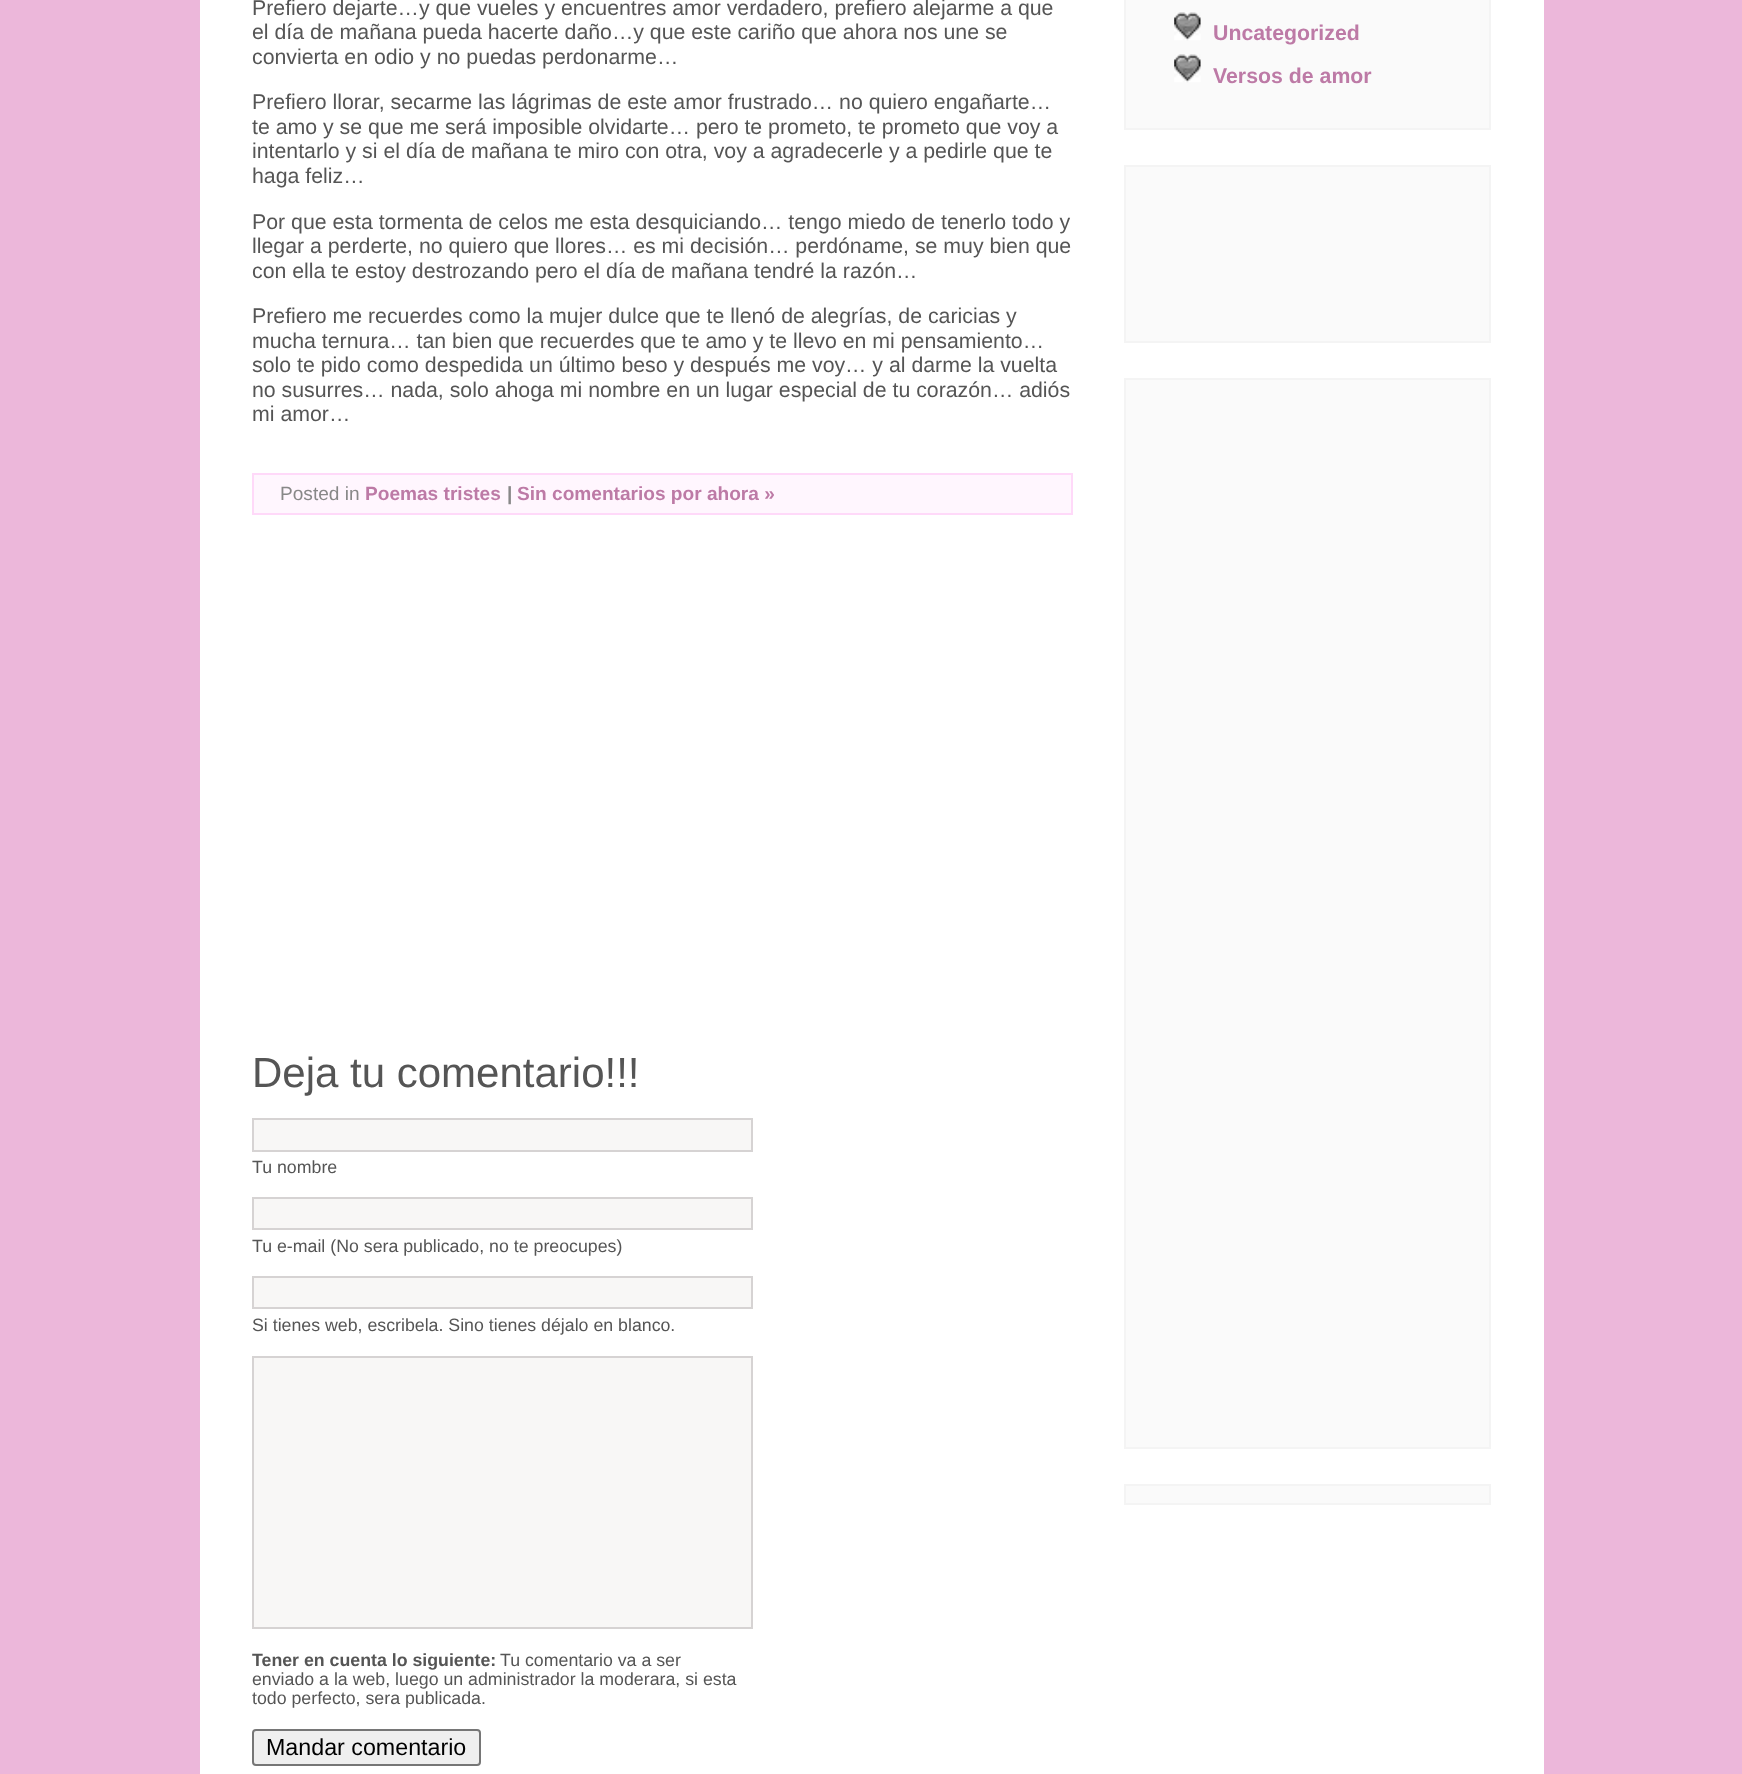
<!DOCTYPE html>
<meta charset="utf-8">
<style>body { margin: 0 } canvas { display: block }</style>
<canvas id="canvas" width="1742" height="1774"></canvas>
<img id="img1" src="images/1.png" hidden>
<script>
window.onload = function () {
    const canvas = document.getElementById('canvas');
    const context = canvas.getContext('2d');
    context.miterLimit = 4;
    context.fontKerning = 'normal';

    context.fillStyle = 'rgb(236, 183, 218)';
    context.fillRect(0, 0, 1742, 1774);
    context.fillStyle = 'rgb(255, 255, 255)';
    context.fillRect(200, 0, 1344, 1774);
    context.fillStyle = 'rgb(255, 246, 254)';
    context.beginPath();
    context.rect(253, 474, 819, 40);
    context.fill();
    context.strokeStyle = 'rgb(255, 217, 249)';
    context.lineWidth = 2;
    context.stroke();
    context.fillStyle = 'rgb(248, 247, 246)';
    context.beginPath();
    context.rect(253, 1119, 499, 32);
    context.fill();
    context.strokeStyle = 'rgb(214, 211, 211)';
    context.stroke();
    context.beginPath();
    context.rect(253, 1198, 499, 31);
    context.fill();
    context.stroke();
    context.beginPath();
    context.rect(253, 1277, 499, 31);
    context.fill();
    context.stroke();
    context.beginPath();
    context.rect(253, 1357, 499, 271);
    context.fill();
    context.stroke();
    context.fillStyle = 'rgb(239, 239, 239)';
    context.beginPath();
    context.roundRect(253, 1730, 227, 35, 3);
    context.fill();
    context.strokeStyle = 'rgb(118, 118, 118)';
    context.stroke();
    context.fillStyle = 'rgb(250, 250, 250)';
    context.beginPath();
    context.rect(1125, -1, 365, 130);
    context.fill();
    context.strokeStyle = 'rgb(244, 244, 244)';
    context.stroke();
    context.drawImage(document.getElementById('img1'), 1174, 12, 27, 29);
    context.drawImage(document.getElementById('img1'), 1174, 54, 27, 29);
    context.beginPath();
    context.rect(1125, 166, 365, 176);
    context.fill();
    context.stroke();
    context.beginPath();
    context.rect(1125, 379, 365, 1069);
    context.fill();
    context.stroke();
    context.beginPath();
    context.rect(1125, 1485, 365, 19);
    context.fill();
    context.stroke();
    context.font = '21.3px Liberation Sans';
    context.fillStyle = 'rgb(85, 85, 85)';
    context.fillText('Prefiero dejarte…y que vueles y encuentres amor verdadero, prefiero alejarme a que', 252, 15);
    context.fillText('el día de mañana pueda hacerte daño…y que este cariño que ahora nos une se', 252, 39);
    context.fillText('convierta en odio y no puedas perdonarme…', 252, 64);
    context.fillText('Prefiero llorar, secarme las lágrimas de este amor frustrado… no quiero engañarte…', 252, 109);
    context.fillText('te amo y se que me será imposible olvidarte… pero te prometo, te prometo que voy a', 252, 134);
    context.fillText('intentarlo y si el día de mañana te miro con otra, voy a agradecerle y a pedirle que te', 252, 158);
    context.fillText('haga feliz…', 252, 183);
    context.fillText('Por que esta tormenta de celos me esta desquiciando… tengo miedo de tenerlo todo y', 252, 229);
    context.fillText('llegar a perderte, no quiero que llores… es mi decisión… perdóname, se muy bien que', 252, 253);
    context.fillText('con ella te estoy destrozando pero el día de mañana tendré la razón…', 252, 278);
    context.fillText('Prefiero me recuerdes como la mujer dulce que te llenó de alegrías, de caricias y', 252, 323);
    context.fillText('mucha ternura… tan bien que recuerdes que te amo y te llevo en mi pensamiento…', 252, 348);
    context.fillText('solo te pido como despedida un último beso y después me voy… y al darme la vuelta', 252, 372);
    context.fillText('no susurres… nada, solo ahoga mi nombre en un lugar especial de tu corazón… adiós', 252, 397);
    context.fillText('mi amor…', 252, 421);
    context.font = '19.1px Liberation Sans';
    context.fillStyle = 'rgb(136, 136, 136)';
    context.fillText('Posted in', 280, 500);
    context.font = 'bold 19.1px Liberation Sans';
    context.fillStyle = 'rgb(189, 122, 166)';
    context.fillText('Poemas tristes', 365, 500);
    context.fillStyle = 'rgb(136, 136, 136)';
    context.fillText('|', 507, 500);
    context.fillStyle = 'rgb(189, 122, 166)';
    context.fillText('Sin comentarios por ahora »', 517, 500);
    context.font = '42px Liberation Sans';
    context.fillStyle = 'rgb(85, 85, 85)';
    context.fillText('Deja tu comentario!!!', 252, 1087);
    context.font = '17.75px Liberation Sans';
    context.fillText('Tu nombre', 252, 1173);
    context.fillText('Tu e-mail (No sera publicado, no te preocupes)', 252, 1252);
    context.fillText('Si tienes web, escribela. Sino tienes déjalo en blanco.', 252, 1331);
    context.font = 'bold 17.75px Liberation Sans';
    context.fillText('Tener en cuenta lo siguiente:', 252, 1666);
    context.font = '17.75px Liberation Sans';
    context.fillText('Tu comentario va a ser', 500, 1666);
    context.fillText('enviado a la web, luego un administrador la moderara, si esta', 252, 1685);
    context.fillText('todo perfecto, sera publicada.', 252, 1704);
    context.font = '23.25px Liberation Sans';
    context.fillStyle = 'rgb(0, 0, 0)';
    context.fillText('Mandar comentario', 266, 1755);
    context.font = 'bold 21.3px Liberation Sans';
    context.fillStyle = 'rgb(189, 122, 166)';
    context.fillText('Uncategorized', 1213, 40);
    context.fillText('Versos de amor', 1213, 83);
};
</script>
